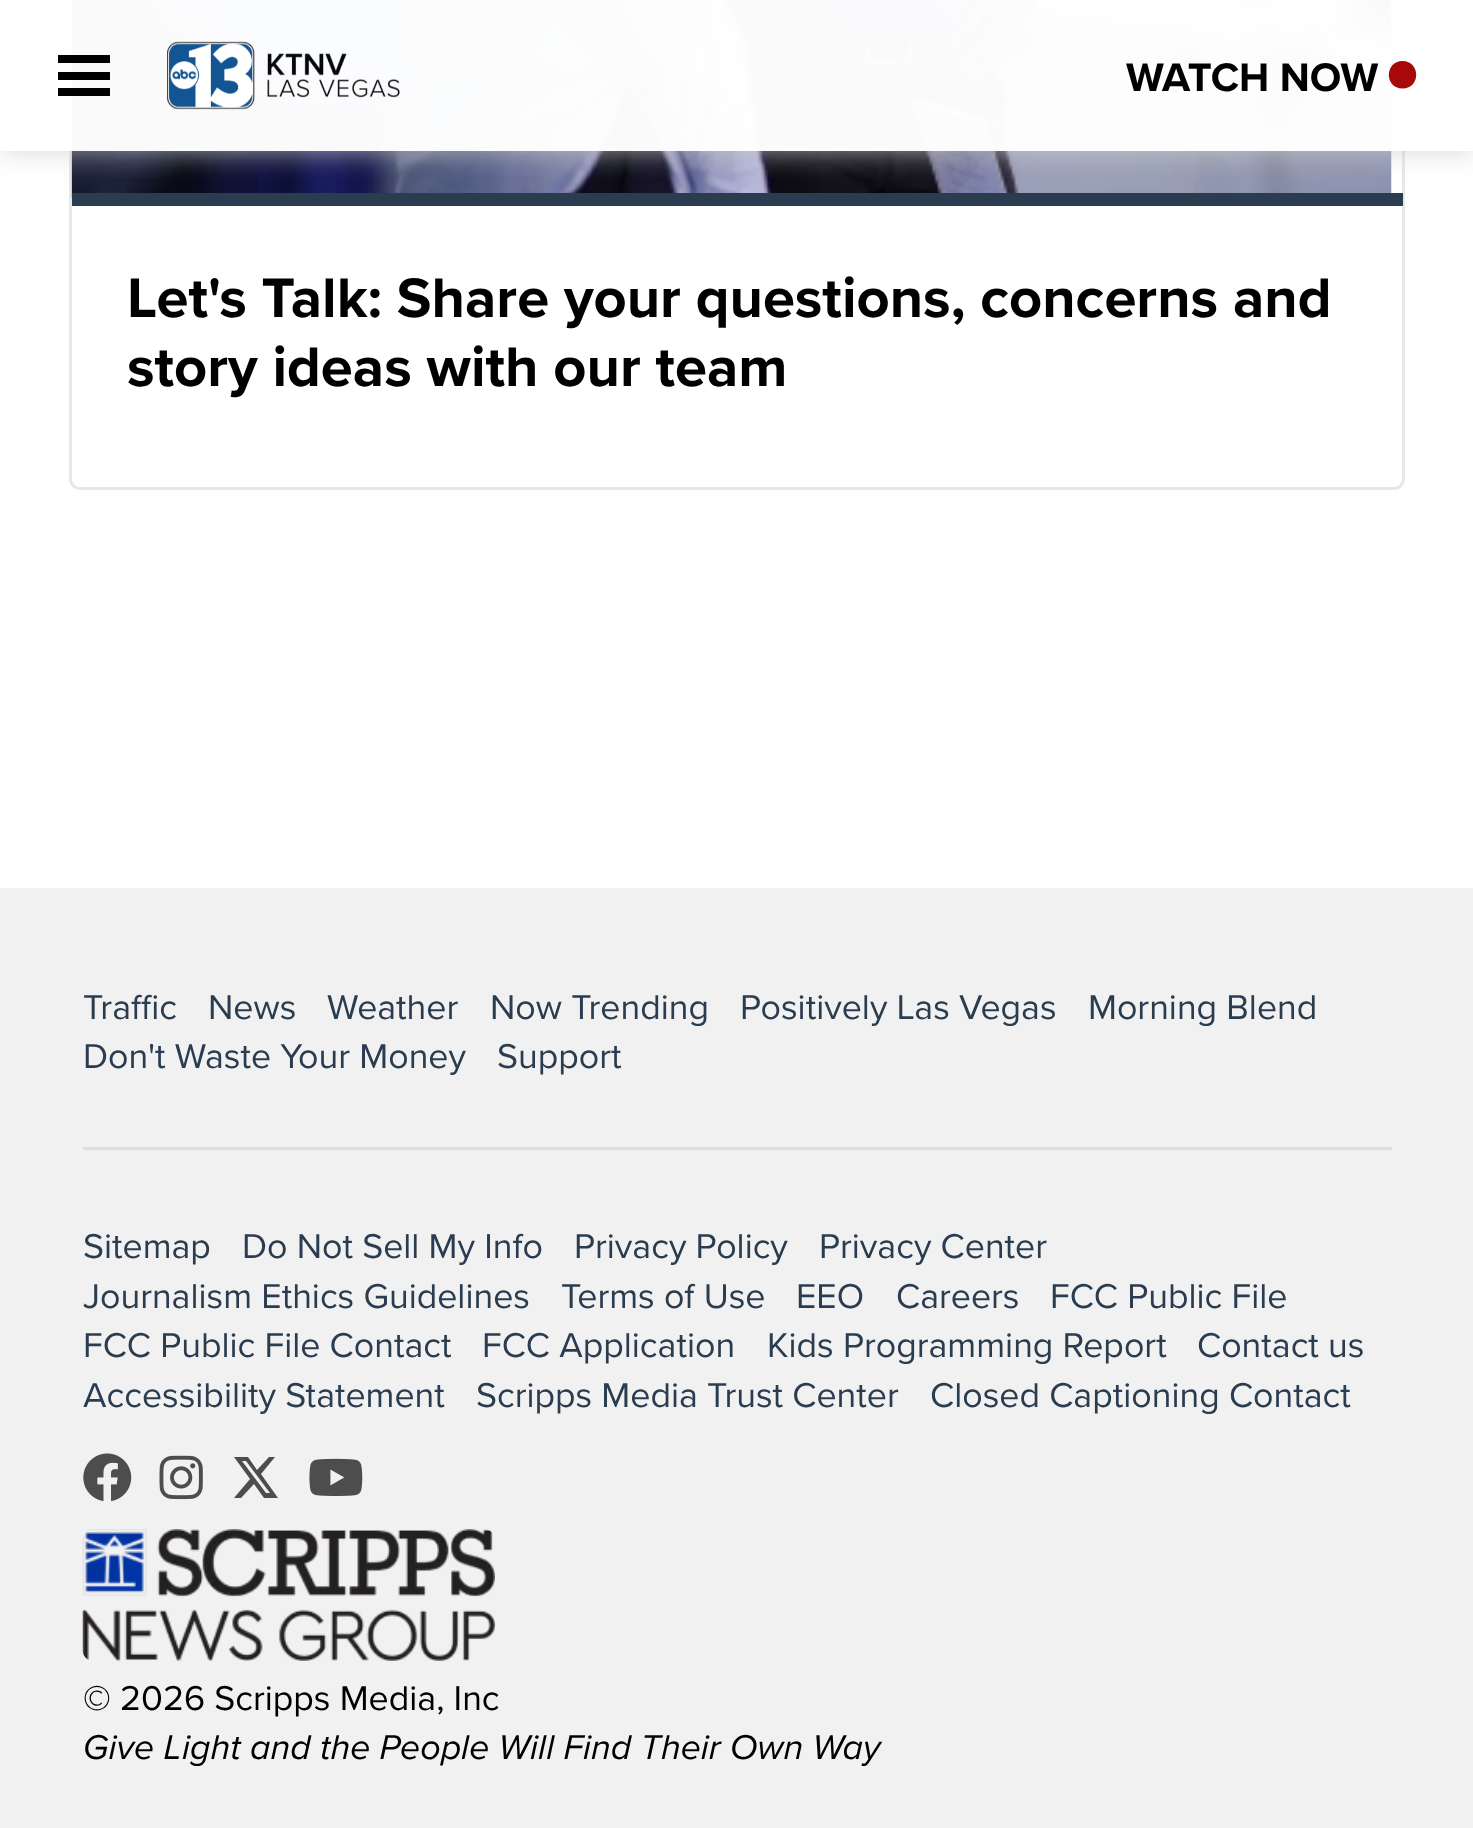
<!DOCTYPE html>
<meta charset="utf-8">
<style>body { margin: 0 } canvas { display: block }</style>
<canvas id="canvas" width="1473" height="1828"></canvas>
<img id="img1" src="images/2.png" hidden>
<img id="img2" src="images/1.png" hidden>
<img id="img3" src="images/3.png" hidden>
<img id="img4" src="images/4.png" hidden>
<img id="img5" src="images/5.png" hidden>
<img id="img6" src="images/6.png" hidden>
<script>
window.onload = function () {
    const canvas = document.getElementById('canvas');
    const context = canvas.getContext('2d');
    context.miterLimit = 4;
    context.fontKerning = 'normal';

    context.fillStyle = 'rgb(255, 255, 255)';
    context.fillRect(0, 0, 1473, 1828);
    context.beginPath();
    context.roundRect(70.5, -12.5, 1333, 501, 9.5);
    context.strokeStyle = 'rgb(231, 231, 231)';
    context.lineWidth = 3;
    context.stroke();
    context.drawImage(document.getElementById('img1'), 71, 0, 1321, 198);
    context.fillStyle = 'rgb(42, 60, 79)';
    context.fillRect(72, 193, 1331, 13);
    context.save();
    context.beginPath();
    context.rect(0, 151, 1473, 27);
    context.clip();
    context.fillStyle = 'rgba(204, 204, 204, 0.8)';
    context.filter = 'blur(14px)';
    context.beginPath();
    context.rect(0, 0, 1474, 151);
    context.fill();
    context.filter = 'none';
    context.restore();
    context.fillStyle = 'rgba(255, 255, 255, 0.98)';
    context.fillRect(69, 0, 1336, 151);
    context.fillStyle = 'rgb(0, 0, 0)';
    context.fillRect(58, 55, 52, 8);
    context.fillRect(58, 72, 52, 8);
    context.fillRect(58, 88, 52, 8);
    context.drawImage(document.getElementById('img2'), 167, 41, 233, 69);
    context.fillStyle = 'rgb(167, 8, 8)';
    context.beginPath();
    context.moveTo(1402.5, 88.5);
    context.bezierCurveTo(1421, 88.5, 1420.5, 61, 1402.5, 61);
    context.bezierCurveTo(1384.5, 61, 1384, 88.5, 1402.5, 88.5);
    context.closePath();
    context.fill();
    context.fillStyle = 'rgb(241, 241, 241)';
    context.fillRect(0, 888, 1473, 940);
    context.fillStyle = 'rgb(221, 221, 221)';
    context.fillRect(83, 1147, 1309, 3);
    context.drawImage(document.getElementById('img3'), 83, 1453, 49, 49);
    context.drawImage(document.getElementById('img4'), 159, 1455, 44, 45);
    context.fillStyle = 'rgb(77, 77, 77)';
    context.beginPath();
    context.moveTo(269, 1457);
    context.lineTo(275, 1457);
    context.lineTo(261, 1474);
    context.lineTo(278, 1498);
    context.lineTo(264, 1498);
    context.lineTo(254, 1484);
    context.lineTo(241, 1498);
    context.lineTo(234, 1498);
    context.lineTo(250, 1479);
    context.lineTo(234, 1457);
    context.lineTo(248, 1457);
    context.lineTo(257, 1470);
    context.closePath();
    context.moveTo(266, 1493);
    context.lineTo(270, 1493);
    context.lineTo(246, 1461);
    context.lineTo(242, 1461);
    context.closePath();
    context.fill();
    context.drawImage(document.getElementById('img5'), 309, 1458, 54, 38);
    context.drawImage(document.getElementById('img6'), 82, 1529, 413, 132);
    context.font = 'bold 41.25px Proxima Nova';
    context.fillStyle = 'rgb(0, 0, 0)';
    context.fillText('WATCH NOW', 1126, 91);
    context.font = 'bold 57.75px Proxima Nova';
    context.fillText('Let\'s Talk: Share your questions, concerns and', 127, 317);
    context.fillText('story ideas with our team', 127, 386);
    context.font = '35.75px Proxima Nova';
    context.fillStyle = 'rgb(42, 60, 79)';
    context.fillText('Traffic', 83, 1019);
    context.fillText('News', 208, 1019);
    context.fillText('Weather', 327, 1019);
    context.fillText('Now Trending', 490, 1019);
    context.fillText('Positively Las Vegas', 740, 1019);
    context.fillText('Morning Blend', 1088, 1019);
    context.fillText('Don\'t Waste Your Money', 83, 1068);
    context.fillText('Support', 497, 1068);
    context.fillText('Sitemap', 83, 1258);
    context.fillText('Do Not Sell My Info', 242, 1258);
    context.fillText('Privacy Policy', 574, 1258);
    context.fillText('Privacy Center', 819, 1258);
    context.fillText('Journalism Ethics Guidelines', 83, 1308);
    context.fillText('Terms of Use', 561, 1308);
    context.fillText('EEO', 796, 1308);
    context.fillText('Careers', 896, 1308);
    context.fillText('FCC Public File', 1050, 1308);
    context.fillText('FCC Public File Contact', 83, 1357);
    context.fillText('FCC Application', 482, 1357);
    context.fillText('Kids Programming Report', 767, 1357);
    context.fillText('Contact us', 1197, 1357);
    context.fillText('Accessibility Statement', 83, 1407);
    context.fillText('Scripps Media Trust Center', 476, 1407);
    context.fillText('Closed Captioning Contact', 930, 1407);
    context.fillStyle = 'rgb(0, 0, 0)';
    context.fillText('© 2026 Scripps Media, Inc', 83, 1710);
    context.font = 'italic 35.75px Proxima Nova';
    context.fillText('Give Light and the People Will Find Their Own Way', 83, 1759);
};
</script>
